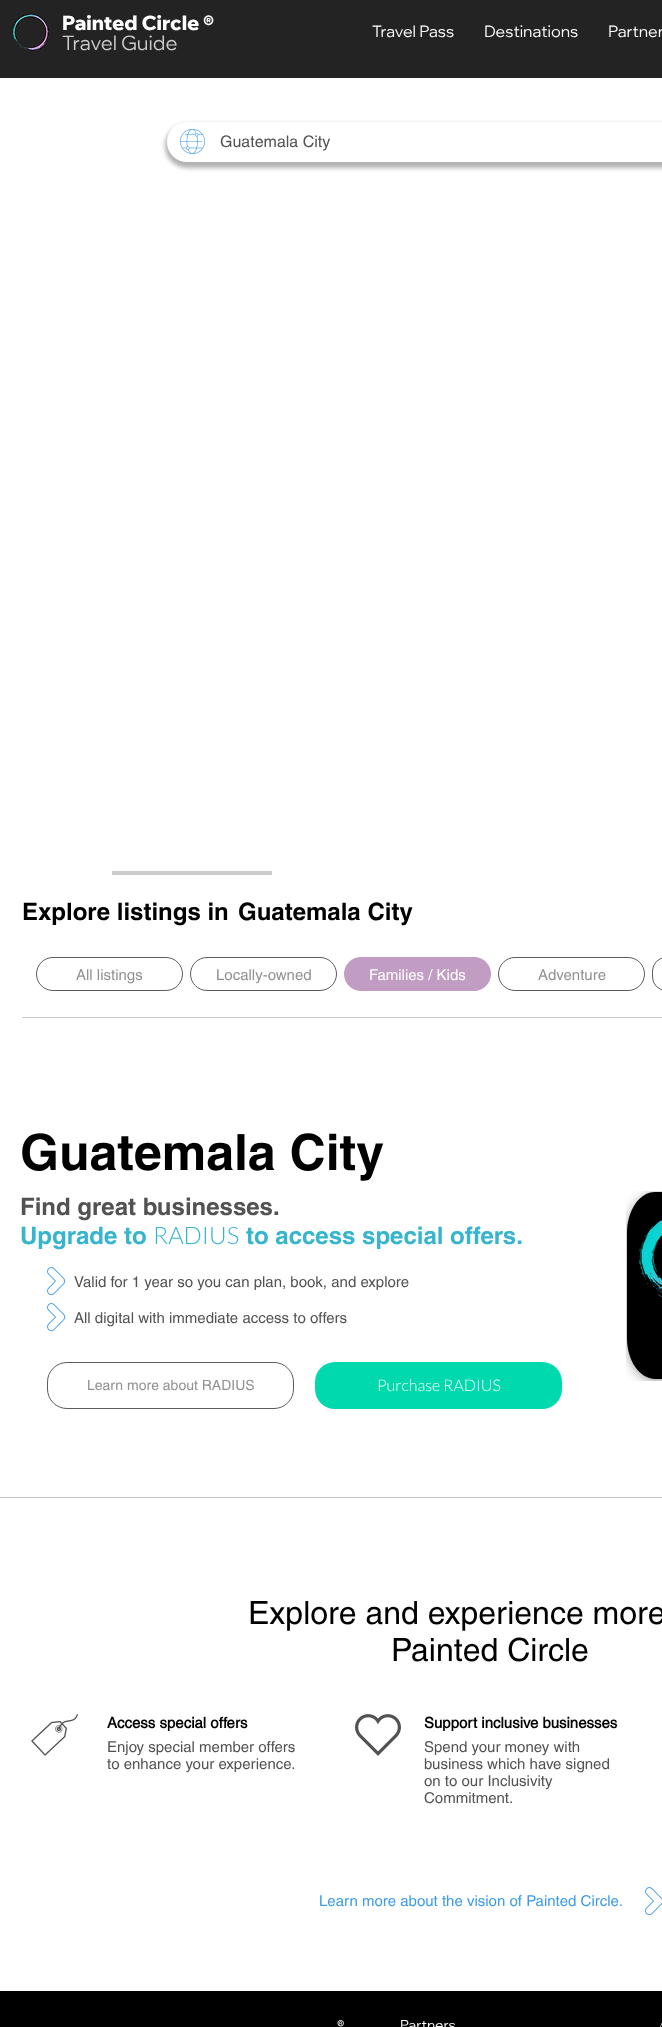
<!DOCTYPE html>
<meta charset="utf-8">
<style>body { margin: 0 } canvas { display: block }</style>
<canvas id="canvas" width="662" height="2027"></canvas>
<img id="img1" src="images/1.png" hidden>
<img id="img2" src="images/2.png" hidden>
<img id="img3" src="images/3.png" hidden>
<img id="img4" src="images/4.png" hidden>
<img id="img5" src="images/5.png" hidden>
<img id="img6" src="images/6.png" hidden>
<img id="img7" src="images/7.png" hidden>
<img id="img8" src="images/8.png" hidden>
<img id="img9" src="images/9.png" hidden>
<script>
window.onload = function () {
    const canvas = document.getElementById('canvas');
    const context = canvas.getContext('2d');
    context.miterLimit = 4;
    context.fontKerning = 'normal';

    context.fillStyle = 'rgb(255, 255, 255)';
    context.fillRect(0, 0, 662, 2027);
    context.fillStyle = 'rgb(36, 35, 35)';
    context.fillRect(0, 0, 662, 78);
    context.drawImage(document.getElementById('img1'), 11, 13, 38, 38);
    context.fillStyle = 'rgba(0, 0, 0, 0.3)';
    context.filter = 'blur(2px)';
    context.beginPath();
    context.roundRect(165, 124, 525, 44, 22);
    context.fill();
    context.filter = 'none';
    context.fillStyle = 'rgb(255, 255, 255)';
    context.beginPath();
    context.roundRect(167, 122, 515, 40, 20);
    context.fill();
    context.drawImage(document.getElementById('img2'), 180, 129, 25, 25);
    context.fillStyle = 'rgb(204, 204, 204)';
    context.fillRect(112, 871, 160, 4);
    context.beginPath();
    context.roundRect(36.5, 957.5, 146, 33, 16.5);
    context.strokeStyle = 'rgb(92, 92, 92)';
    context.stroke();
    context.beginPath();
    context.roundRect(190.5, 957.5, 146, 33, 16.5);
    context.stroke();
    context.fillStyle = 'rgb(193, 157, 196)';
    context.beginPath();
    context.roundRect(344, 957, 147, 34, 17);
    context.fill();
    context.beginPath();
    context.roundRect(498.5, 957.5, 146, 33, 16.5);
    context.stroke();
    context.beginPath();
    context.roundRect(652.5, 957.5, 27, 33, 16.5);
    context.stroke();
    context.fillStyle = 'rgb(204, 204, 204)';
    context.fillRect(22, 1017, 640, 1);
    context.drawImage(document.getElementById('img3'), 626, 1191, 36, 190);
    context.drawImage(document.getElementById('img4'), 639, 1220, 23, 78);
    context.drawImage(document.getElementById('img5'), 47, 1267, 19, 29);
    context.drawImage(document.getElementById('img5'), 47, 1303, 19, 29);
    context.beginPath();
    context.roundRect(47.5, 1362.5, 246, 46, 19.5);
    context.stroke();
    context.fillStyle = 'rgb(0, 217, 174)';
    context.beginPath();
    context.roundRect(315, 1362, 247, 47, 20);
    context.fill();
    context.fillStyle = 'rgb(199, 192, 201)';
    context.fillRect(0, 1497, 662, 1);
    context.drawImage(document.getElementById('img6'), 31, 1714, 47, 42);
    context.drawImage(document.getElementById('img7'), 355, 1714, 46, 42);
    context.drawImage(document.getElementById('img8'), 645, 1887, 17, 29);
    context.fillStyle = 'rgb(0, 0, 0)';
    context.fillRect(0, 1991, 662, 36);
    context.drawImage(document.getElementById('img9'), 660, 2022, 2, 5);
    context.font = '800 20px Wix Madefor Display';
    context.fillStyle = 'rgb(255, 255, 255)';
    context.fillText('Painted Circle ®', 62, 30);
    context.font = '20px Wix Madefor Display';
    context.fillStyle = 'rgb(204, 204, 204)';
    context.fillText('Travel Guide', 62, 50);
    context.font = '16px Wix Madefor Display';
    context.fillStyle = 'rgb(255, 255, 255)';
    context.fillText('Travel Pass', 372, 37);
    context.fillText('Destinations', 484, 37);
    context.fillText('Partner', 608, 37);
    context.font = '16px helvetica';
    context.fillStyle = 'rgb(82, 82, 82)';
    context.fillText('Guatemala City', 220, 147);
    context.font = 'bold 24px helvetica';
    context.fillStyle = 'rgb(0, 0, 0)';
    context.fillText('Explore listings in', 22, 920);
    context.fillText('Guatemala City', 238, 920);
    context.font = '15px helvetica';
    context.fillStyle = 'rgb(145, 145, 145)';
    context.fillText('All listings', 76, 980);
    context.fillText('Locally-owned', 216, 980);
    context.fillStyle = 'rgb(255, 255, 255)';
    context.fillText('Families / Kids', 369, 980);
    context.fillStyle = 'rgb(145, 145, 145)';
    context.fillText('Adventure', 538, 980);
    context.font = 'bold 50px helvetica';
    context.fillStyle = 'rgb(0, 0, 0)';
    context.fillText('Guatemala City', 20, 1170);
    context.font = 'bold 24px helvetica';
    context.fillStyle = 'rgb(82, 82, 82)';
    context.fillText('Find great businesses.', 20, 1215);
    context.fillStyle = 'rgb(54, 181, 205)';
    context.fillText('Upgrade to', 20, 1244);
    context.font = '300 24px Lato';
    context.fillText('RADIUS', 153, 1244);
    context.font = 'bold 24px helvetica';
    context.fillText('to access special offers.', 246, 1244);
    context.font = '15px helvetica';
    context.fillStyle = 'rgb(82, 82, 82)';
    context.fillText('Valid for 1 year so you can plan, book, and explore', 74, 1287);
    context.fillText('All digital with immediate access to offers', 74, 1323);
    context.font = '14px helvetica';
    context.fillStyle = 'rgb(145, 145, 145)';
    context.fillText('Learn more about RADIUS', 87, 1390);
    context.font = '300 16px Lato';
    context.fillStyle = 'rgb(255, 255, 255)';
    context.fillText('Purchase RADIUS', 377, 1391);
    context.font = '32px helvetica';
    context.fillStyle = 'rgb(0, 0, 0)';
    context.fillText('Explore and experience more', 248, 1624);
    context.fillText('Painted Circle', 391, 1661);
    context.font = 'bold 15px "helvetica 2"';
    context.fillText('Access special offers', 107, 1728);
    context.font = '15px helvetica';
    context.fillStyle = 'rgb(82, 82, 82)';
    context.fillText('Enjoy special member offers', 107, 1752);
    context.fillText('to enhance your experience.', 107, 1769);
    context.font = 'bold 15px "helvetica 2"';
    context.fillStyle = 'rgb(0, 0, 0)';
    context.fillText('Support inclusive businesses', 424, 1728);
    context.font = '15px helvetica';
    context.fillStyle = 'rgb(82, 82, 82)';
    context.fillText('Spend your money with', 424, 1752);
    context.fillText('business which have signed', 424, 1769);
    context.fillText('on to our Inclusivity', 424, 1786);
    context.fillText('Commitment.', 424, 1803);
    context.fillStyle = 'rgb(61, 155, 233)';
    context.fillText('Learn more about the vision of Painted Circle.', 319, 1906);
    context.font = '14px Wix Madefor Display';
    context.fillStyle = 'rgb(255, 255, 255)';
    context.fillText('®', 337, 2030);
    context.fillText('Partners', 400, 2030);
};
</script>
